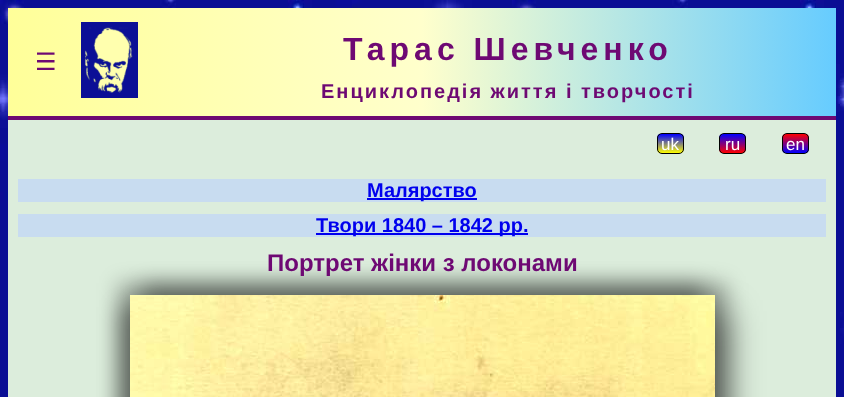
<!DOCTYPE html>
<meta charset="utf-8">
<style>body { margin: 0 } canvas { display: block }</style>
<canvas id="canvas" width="844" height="397"></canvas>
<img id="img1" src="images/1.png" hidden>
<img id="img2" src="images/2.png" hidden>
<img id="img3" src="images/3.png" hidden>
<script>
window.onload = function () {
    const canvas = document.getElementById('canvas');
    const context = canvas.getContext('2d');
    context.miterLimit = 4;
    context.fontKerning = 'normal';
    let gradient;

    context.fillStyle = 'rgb(255, 255, 255)';
    context.fillRect(0, 0, 844, 397);
    context.drawImage(document.getElementById('img1'), 0, 0, 844, 397);
    gradient = context.createLinearGradient(8, 62, 836, 62);
    gradient.addColorStop(0, 'rgb(255, 255, 153)');
    gradient.addColorStop(0.5, 'rgb(255, 255, 204)');
    gradient.addColorStop(1, 'rgb(102, 204, 255)');
    context.fillStyle = gradient;
    context.fillRect(8, 8, 828, 108);
    context.fillStyle = 'rgb(110, 9, 115)';
    context.fillRect(8, 116, 828, 4);
    context.drawImage(document.getElementById('img2'), 81, 22, 57, 76);
    context.fillStyle = 'rgb(220, 237, 220)';
    context.fillRect(8, 120, 828, 277);
    context.save();
    context.beginPath();
    context.roundRect(657, 133, 27, 21, 5);
    context.clip();
    gradient = context.createLinearGradient(671, 134, 671, 153);
    gradient.addColorStop(0, 'rgb(0, 0, 255)');
    gradient.addColorStop(1, 'rgb(255, 255, 0)');
    context.fillStyle = gradient;
    context.fillRect(657, 134, 27, 19);
    context.restore();
    context.beginPath();
    context.roundRect(657.5, 133.5, 26, 20, 4.5);
    context.strokeStyle = 'rgb(0, 0, 0)';
    context.stroke();
    context.save();
    context.beginPath();
    context.roundRect(719, 133, 27, 21, 5);
    context.clip();
    gradient = context.createLinearGradient(733, 134, 733, 153);
    gradient.addColorStop(0, 'rgb(0, 0, 255)');
    gradient.addColorStop(1, 'rgb(255, 0, 0)');
    context.fillStyle = gradient;
    context.fillRect(719, 134, 27, 19);
    context.restore();
    context.beginPath();
    context.roundRect(719.5, 133.5, 26, 20, 4.5);
    context.stroke();
    context.save();
    context.beginPath();
    context.roundRect(782, 133, 27, 21, 5);
    context.clip();
    gradient = context.createLinearGradient(796, 134, 796, 153);
    gradient.addColorStop(0, 'rgb(255, 0, 0)');
    gradient.addColorStop(1, 'rgb(0, 0, 255)');
    context.fillStyle = gradient;
    context.fillRect(782, 134, 27, 19);
    context.restore();
    context.beginPath();
    context.roundRect(782.5, 133.5, 26, 20, 4.5);
    context.stroke();
    context.fillStyle = 'rgb(200, 220, 240)';
    context.fillRect(18, 179, 808, 23);
    context.fillStyle = 'rgb(0, 0, 238)';
    context.fillRect(367, 198, 110, 2);
    context.fillStyle = 'rgb(200, 220, 240)';
    context.fillRect(18, 214, 808, 23);
    context.fillStyle = 'rgb(0, 0, 238)';
    context.fillRect(316, 233, 212, 2);
    context.fillStyle = 'rgba(0, 0, 0, 0.4)';
    context.filter = 'blur(16px)';
    context.beginPath();
    context.rect(146, 311, 585, 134);
    context.fill();
    context.filter = 'none';
    context.fillStyle = 'rgba(0, 0, 0, 0.3)';
    context.filter = 'blur(10px)';
    context.beginPath();
    context.rect(142, 283, 585, 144);
    context.fill();
    context.filter = 'none';
    context.filter = 'blur(10px)';
    context.beginPath();
    context.rect(118, 307, 585, 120);
    context.fill();
    context.filter = 'none';
    context.filter = 'blur(10px)';
    context.beginPath();
    context.rect(118, 283, 585, 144);
    context.fill();
    context.filter = 'none';
    context.drawImage(document.getElementById('img3'), 130, 295, 585, 102);
    context.font = '24px DejaVu Sans';
    context.fillStyle = 'rgb(110, 9, 115)';
    context.fillText('☰', 35, 70);
    context.letterSpacing = '5px';
    context.font = 'bold 32px Liberation Sans';
    context.fillText('Тарас Шевченко', 343, 60);
    context.letterSpacing = '2px';
    context.font = 'bold 20px Liberation Sans';
    context.fillText('Енциклопедія життя і творчості', 321, 98);
    context.letterSpacing = '0px';
    context.font = '17px Liberation Sans';
    context.fillStyle = 'rgb(255, 255, 255)';
    context.fillText('uk', 661, 150);
    context.fillText('ru', 725, 150);
    context.fillText('en', 786, 150);
    context.font = 'bold 20px Liberation Sans';
    context.fillStyle = 'rgb(0, 0, 238)';
    context.fillText('Малярство', 367, 197);
    context.fillText('Твори 1840 – 1842 рр.', 316, 232);
    context.font = 'bold 24px Liberation Sans';
    context.fillStyle = 'rgb(110, 9, 115)';
    context.fillText('Портрет жінки з локонами', 267, 271);
};
</script>
